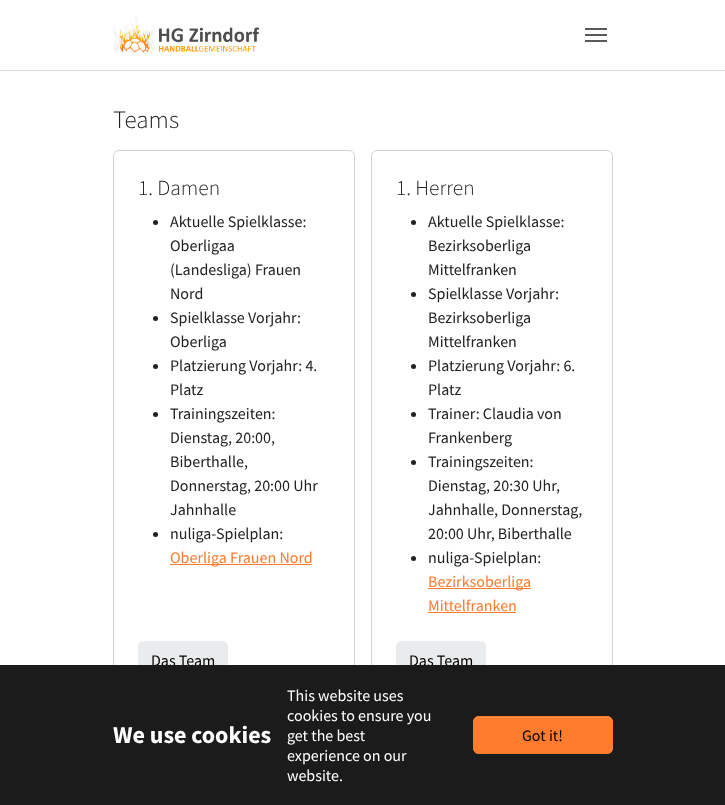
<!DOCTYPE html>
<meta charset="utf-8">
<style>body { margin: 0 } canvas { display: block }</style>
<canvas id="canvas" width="725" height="805"></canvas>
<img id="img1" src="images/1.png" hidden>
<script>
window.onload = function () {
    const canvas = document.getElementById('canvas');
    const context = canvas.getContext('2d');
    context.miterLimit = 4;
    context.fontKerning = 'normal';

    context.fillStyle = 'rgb(255, 255, 255)';
    context.fillRect(0, 0, 725, 805);
    context.fillStyle = 'rgb(217, 217, 217)';
    context.fillRect(0, 70, 725, 1);
    context.drawImage(document.getElementById('img1'), 113, 16, 146, 39);
    context.fillStyle = 'rgb(89, 89, 89)';
    context.fillRect(585, 34, 22, 2);
    context.fillRect(585, 28, 22, 2);
    context.fillRect(585, 40, 22, 2);
    context.beginPath();
    context.roundRect(113.5, 150.5, 241, 553, 5.5);
    context.strokeStyle = 'rgb(210, 210, 210)';
    context.stroke();
    context.fillStyle = 'rgb(33, 33, 33)';
    context.beginPath();
    context.arc(155.5, 222.5, 2.5, 0, 2 * Math.PI);
    context.fill();
    context.beginPath();
    context.arc(155.5, 318.5, 2.5, 0, 2 * Math.PI);
    context.fill();
    context.beginPath();
    context.arc(155.5, 366.5, 2.5, 0, 2 * Math.PI);
    context.fill();
    context.beginPath();
    context.arc(155.5, 414.5, 2.5, 0, 2 * Math.PI);
    context.fill();
    context.beginPath();
    context.arc(155.5, 534.5, 2.5, 0, 2 * Math.PI);
    context.fill();
    context.fillStyle = 'rgb(255, 123, 45)';
    context.fillRect(170, 564, 142, 1);
    context.fillStyle = 'rgb(234, 235, 236)';
    context.beginPath();
    context.roundRect(138, 641, 90, 38, 6);
    context.fill();
    context.fillStyle = 'rgb(237, 238, 239)';
    context.beginPath();
    context.moveTo(144, 643);
    context.lineTo(222, 643);
    context.bezierCurveTo(225, 643, 227, 645, 227, 648);
    context.bezierCurveTo(227, 639, 215, 642, 209, 642);
    context.lineTo(157, 642);
    context.bezierCurveTo(151, 642, 139, 639, 139, 648);
    context.bezierCurveTo(139, 645, 141, 643, 144, 643);
    context.closePath();
    context.fill();
    context.beginPath();
    context.roundRect(138.5, 641.5, 89, 37, 5.5);
    context.strokeStyle = 'rgb(234, 235, 236)';
    context.stroke();
    context.beginPath();
    context.roundRect(371.5, 150.5, 241, 553, 5.5);
    context.strokeStyle = 'rgb(210, 210, 210)';
    context.stroke();
    context.fillStyle = 'rgb(33, 33, 33)';
    context.beginPath();
    context.arc(413.5, 222.5, 2.5, 0, 2 * Math.PI);
    context.fill();
    context.beginPath();
    context.arc(413.5, 294.5, 2.5, 0, 2 * Math.PI);
    context.fill();
    context.beginPath();
    context.arc(413.5, 366.5, 2.5, 0, 2 * Math.PI);
    context.fill();
    context.beginPath();
    context.arc(413.5, 414.5, 2.5, 0, 2 * Math.PI);
    context.fill();
    context.beginPath();
    context.arc(413.5, 462.5, 2.5, 0, 2 * Math.PI);
    context.fill();
    context.beginPath();
    context.arc(413.5, 558.5, 2.5, 0, 2 * Math.PI);
    context.fill();
    context.fillStyle = 'rgb(255, 123, 45)';
    context.fillRect(428, 588, 103, 1);
    context.fillRect(428, 612, 88, 1);
    context.fillStyle = 'rgb(234, 235, 236)';
    context.beginPath();
    context.roundRect(396, 641, 90, 38, 6);
    context.fill();
    context.fillStyle = 'rgb(237, 238, 239)';
    context.beginPath();
    context.moveTo(402, 643);
    context.lineTo(480, 643);
    context.bezierCurveTo(483, 643, 485, 645, 485, 648);
    context.bezierCurveTo(485, 639, 473, 642, 467, 642);
    context.lineTo(415, 642);
    context.bezierCurveTo(409, 642, 397, 639, 397, 648);
    context.bezierCurveTo(397, 645, 399, 643, 402, 643);
    context.closePath();
    context.fill();
    context.beginPath();
    context.roundRect(396.5, 641.5, 89, 37, 5.5);
    context.strokeStyle = 'rgb(234, 235, 236)';
    context.stroke();
    context.font = '300 25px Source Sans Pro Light';
    context.fillStyle = 'rgb(33, 33, 33)';
    context.fillText('Teams', 113, 128);
    context.font = '300 21.5px Source Sans Pro Light';
    context.fillText('1. Damen', 138, 195);
    context.font = '16px Source Sans Pro';
    context.fillText('Aktuelle Spielklasse:', 170, 227);
    context.fillText('Oberligaa', 170, 251);
    context.fillText('(Landesliga) Frauen', 170, 275);
    context.fillText('Nord', 170, 299);
    context.fillText('Spielklasse Vorjahr:', 170, 323);
    context.fillText('Oberliga', 170, 347);
    context.fillText('Platzierung Vorjahr: 4.', 170, 371);
    context.fillText('Platz', 170, 395);
    context.fillText('Trainingszeiten:', 170, 419);
    context.fillText('Dienstag, 20:00,', 170, 443);
    context.fillText('Biberthalle,', 170, 467);
    context.fillText('Donnerstag, 20:00 Uhr', 170, 491);
    context.fillText('Jahnhalle', 170, 515);
    context.fillText('nuliga-Spielplan:', 170, 539);
    context.fillStyle = 'rgb(255, 123, 45)';
    context.fillText('Oberliga Frauen Nord', 170, 563);
    context.fillStyle = 'rgb(0, 0, 0)';
    context.fillText('Das Team', 151, 666);
    context.font = '300 21.5px Source Sans Pro Light';
    context.fillStyle = 'rgb(33, 33, 33)';
    context.fillText('1. Herren', 396, 195);
    context.font = '16px Source Sans Pro';
    context.fillText('Aktuelle Spielklasse:', 428, 227);
    context.fillText('Bezirksoberliga', 428, 251);
    context.fillText('Mittelfranken', 428, 275);
    context.fillText('Spielklasse Vorjahr:', 428, 299);
    context.fillText('Bezirksoberliga', 428, 323);
    context.fillText('Mittelfranken', 428, 347);
    context.fillText('Platzierung Vorjahr: 6.', 428, 371);
    context.fillText('Platz', 428, 395);
    context.fillText('Trainer: Claudia von', 428, 419);
    context.fillText('Frankenberg', 428, 443);
    context.fillText('Trainingszeiten:', 428, 467);
    context.fillText('Dienstag, 20:30 Uhr,', 428, 491);
    context.fillText('Jahnhalle, Donnerstag,', 428, 515);
    context.fillText('20:00 Uhr, Biberthalle', 428, 539);
    context.fillText('nuliga-Spielplan:', 428, 563);
    context.fillStyle = 'rgb(255, 123, 45)';
    context.fillText('Bezirksoberliga', 428, 587);
    context.fillText('Mittelfranken', 428, 611);
    context.fillStyle = 'rgb(0, 0, 0)';
    context.fillText('Das Team', 409, 666);
    context.fillStyle = 'rgb(27, 27, 27)';
    context.fillRect(0, 665, 725, 140);
    context.font = 'bold 24px Source Sans Pro';
    context.fillStyle = 'rgb(255, 255, 255)';
    context.fillText('We use cookies', 113, 743);
    context.font = '16px Source Sans Pro';
    context.fillText('This website uses', 287, 701);
    context.fillText('cookies to ensure you', 287, 721);
    context.fillText('get the best', 287, 741);
    context.fillText('experience on our', 287, 761);
    context.fillText('website.', 287, 781);
    context.fillStyle = 'rgb(255, 123, 45)';
    context.beginPath();
    context.roundRect(473, 716, 140, 38, 6);
    context.fill();
    context.fillStyle = 'rgb(255, 143, 77)';
    context.beginPath();
    context.moveTo(479, 718);
    context.lineTo(607, 718);
    context.bezierCurveTo(610, 718, 612, 720, 612, 723);
    context.lineTo(612, 722);
    context.bezierCurveTo(612, 719, 610, 717, 607, 717);
    context.lineTo(479, 717);
    context.bezierCurveTo(476, 717, 474, 719, 474, 722);
    context.lineTo(474, 723);
    context.bezierCurveTo(474, 720, 476, 718, 479, 718);
    context.closePath();
    context.fill();
    context.beginPath();
    context.roundRect(473.5, 716.5, 139, 37, 5.5);
    context.strokeStyle = 'rgb(255, 123, 45)';
    context.stroke();
    context.fillStyle = 'rgb(0, 0, 0)';
    context.fillText('Got it!', 522, 741);
};
</script>
